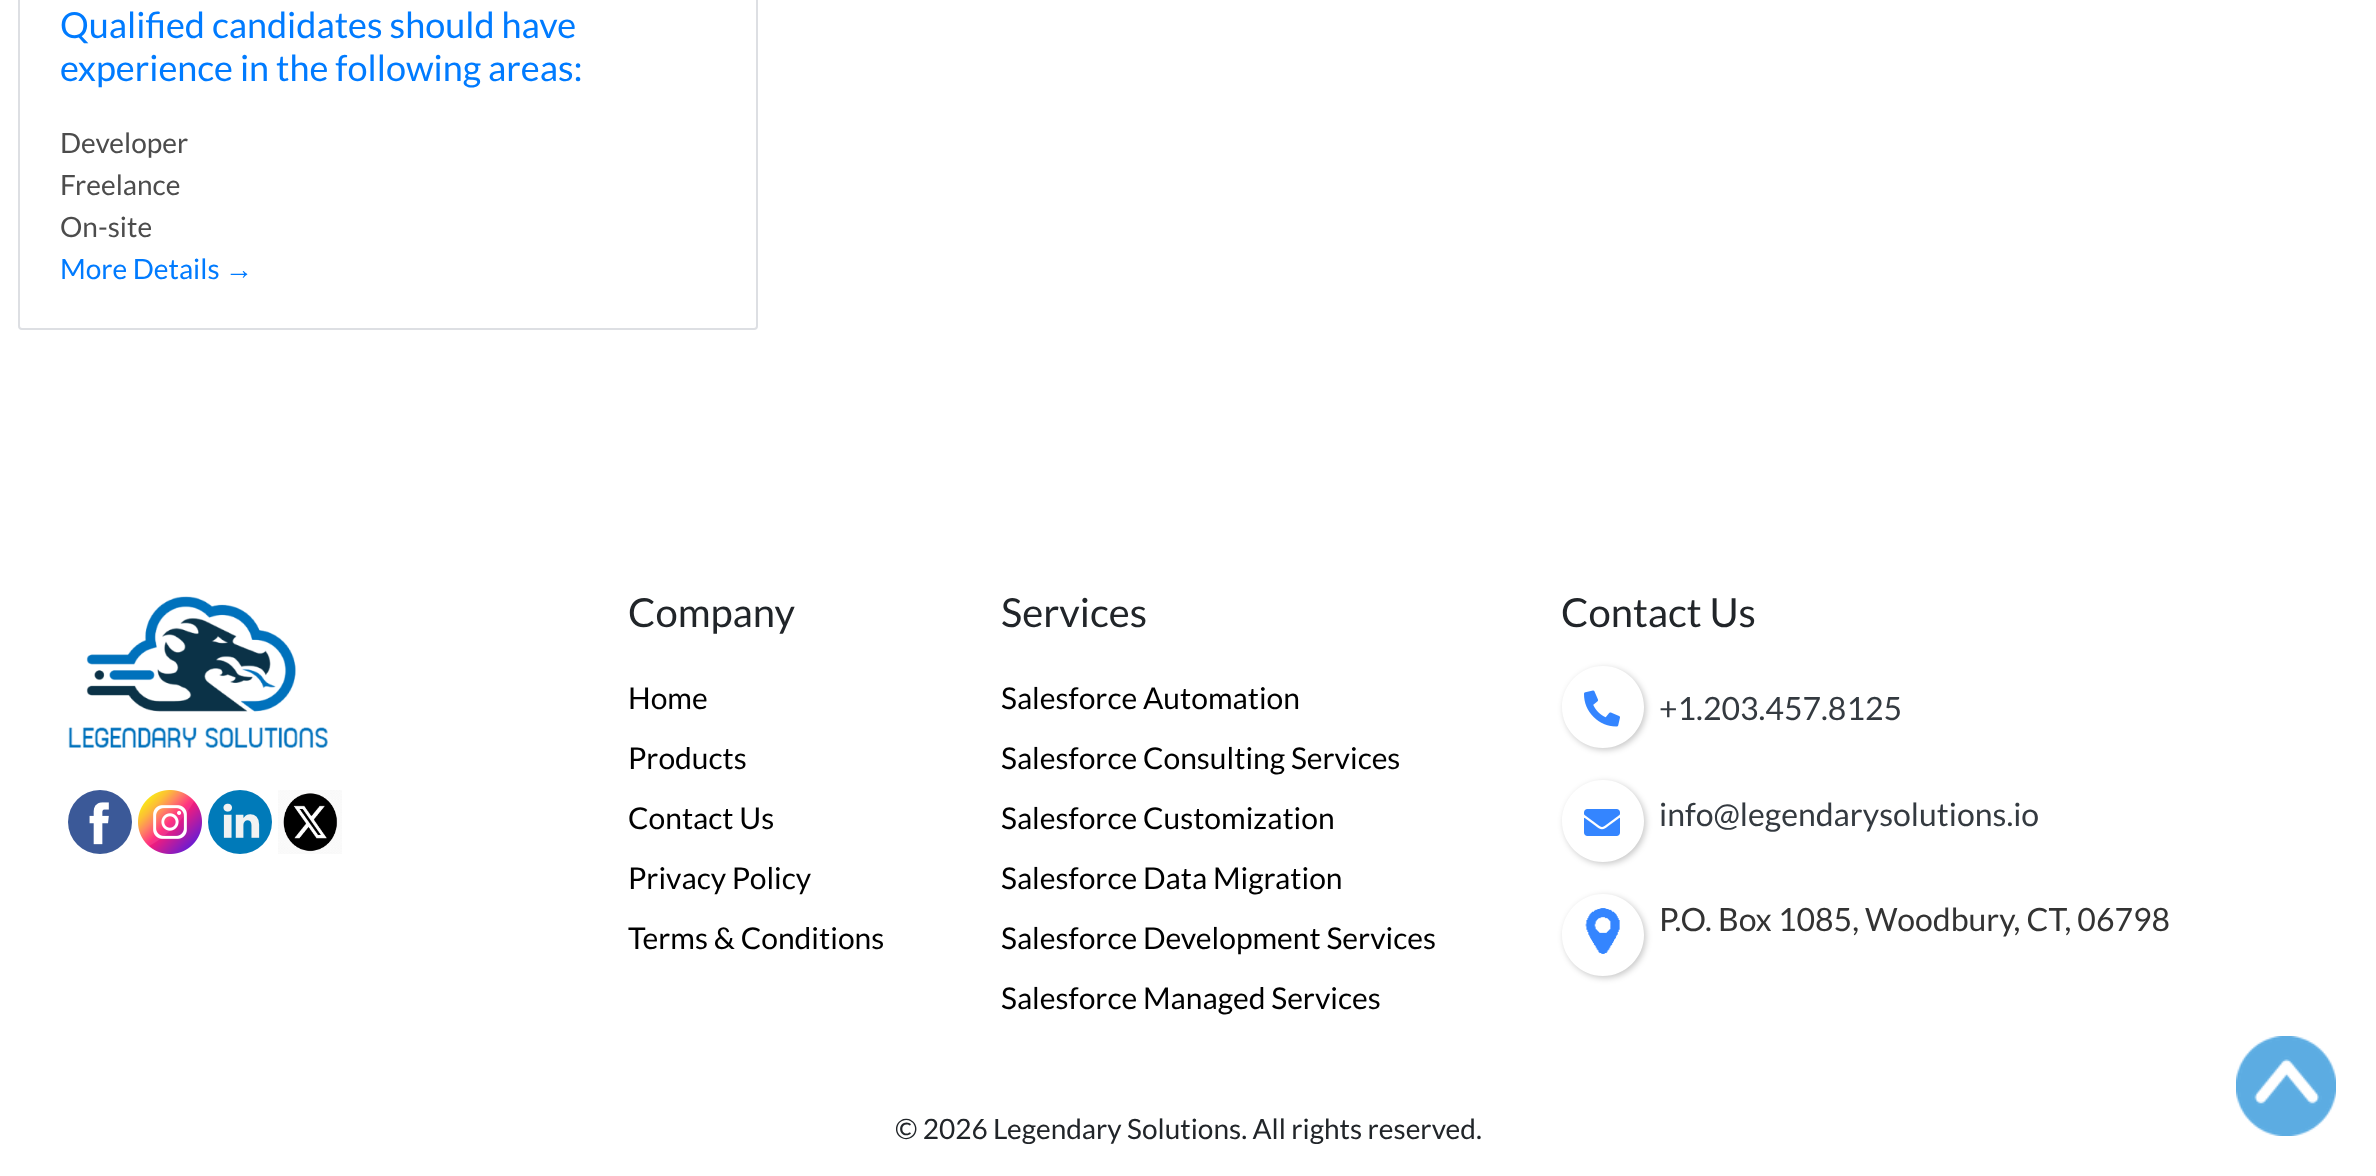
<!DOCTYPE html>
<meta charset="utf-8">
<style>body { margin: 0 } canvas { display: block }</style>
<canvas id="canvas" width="2376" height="1176"></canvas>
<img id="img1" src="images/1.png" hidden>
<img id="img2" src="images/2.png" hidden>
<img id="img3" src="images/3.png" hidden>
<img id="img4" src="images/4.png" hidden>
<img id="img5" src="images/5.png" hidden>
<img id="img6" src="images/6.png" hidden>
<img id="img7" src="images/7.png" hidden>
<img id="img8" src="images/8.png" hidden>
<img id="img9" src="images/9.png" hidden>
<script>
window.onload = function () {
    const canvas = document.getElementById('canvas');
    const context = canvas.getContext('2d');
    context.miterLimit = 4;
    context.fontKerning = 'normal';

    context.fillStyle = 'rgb(255, 255, 255)';
    context.fillRect(0, 0, 2376, 1176);
    context.beginPath();
    context.roundRect(19, -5, 738, 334, 3);
    context.strokeStyle = 'rgb(221, 223, 227)';
    context.lineWidth = 2;
    context.stroke();
    context.drawImage(document.getElementById('img1'), 68, 596, 260, 152);
    context.drawImage(document.getElementById('img2'), 68, 790, 64, 64);
    context.drawImage(document.getElementById('img3'), 138, 790, 64, 64);
    context.drawImage(document.getElementById('img4'), 208, 790, 64, 64);
    context.drawImage(document.getElementById('img5'), 278, 790, 64, 64);
    context.save();
    context.beginPath();
    context.moveTo(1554, 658);
    context.lineTo(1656, 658);
    context.lineTo(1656, 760);
    context.lineTo(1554, 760);
    context.closePath();
    context.moveTo(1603, 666);
    context.bezierCurveTo(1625.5, 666, 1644, 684.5, 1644, 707);
    context.bezierCurveTo(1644, 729.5, 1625.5, 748, 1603, 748);
    context.bezierCurveTo(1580.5, 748, 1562, 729.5, 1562, 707);
    context.bezierCurveTo(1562, 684.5, 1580.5, 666, 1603, 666);
    context.closePath();
    context.clip('evenodd');
    context.fillStyle = 'rgba(0, 0, 0, 0.22)';
    context.filter = 'blur(3px)';
    context.beginPath();
    context.roundRect(1564, 668, 82, 82, 41);
    context.fill();
    context.filter = 'none';
    context.restore();
    context.drawImage(document.getElementById('img6'), 1584, 690, 36, 37);
    context.save();
    context.beginPath();
    context.moveTo(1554, 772);
    context.lineTo(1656, 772);
    context.lineTo(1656, 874);
    context.lineTo(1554, 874);
    context.closePath();
    context.moveTo(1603, 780);
    context.bezierCurveTo(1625.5, 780, 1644, 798.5, 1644, 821);
    context.bezierCurveTo(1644, 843.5, 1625.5, 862, 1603, 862);
    context.bezierCurveTo(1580.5, 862, 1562, 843.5, 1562, 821);
    context.bezierCurveTo(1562, 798.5, 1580.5, 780, 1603, 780);
    context.closePath();
    context.clip('evenodd');
    context.fillStyle = 'rgba(0, 0, 0, 0.22)';
    context.filter = 'blur(3px)';
    context.beginPath();
    context.roundRect(1564, 782, 82, 82, 41);
    context.fill();
    context.filter = 'none';
    context.restore();
    context.drawImage(document.getElementById('img7'), 1584, 809, 36, 27);
    context.save();
    context.beginPath();
    context.moveTo(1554, 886);
    context.lineTo(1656, 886);
    context.lineTo(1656, 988);
    context.lineTo(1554, 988);
    context.closePath();
    context.moveTo(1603, 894);
    context.bezierCurveTo(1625.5, 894, 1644, 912.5, 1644, 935);
    context.bezierCurveTo(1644, 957.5, 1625.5, 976, 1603, 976);
    context.bezierCurveTo(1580.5, 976, 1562, 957.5, 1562, 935);
    context.bezierCurveTo(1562, 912.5, 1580.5, 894, 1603, 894);
    context.closePath();
    context.clip('evenodd');
    context.fillStyle = 'rgba(0, 0, 0, 0.22)';
    context.filter = 'blur(3px)';
    context.beginPath();
    context.roundRect(1564, 896, 82, 82, 41);
    context.fill();
    context.filter = 'none';
    context.restore();
    context.drawImage(document.getElementById('img8'), 1585, 908, 35, 46);
    context.drawImage(document.getElementById('img9'), 2236, 1036, 100, 100);
    context.font = '36px Lato';
    context.fillStyle = 'rgb(0, 123, 255)';
    context.fillText('Qualified candidates should have', 60, 38);
    context.fillText('experience in the following areas:', 60, 81);
    context.font = '28px Lato';
    context.fillStyle = 'rgb(76, 76, 76)';
    context.fillText('Developer', 60, 153);
    context.fillText('Freelance', 60, 195);
    context.fillText('On-site', 60, 237);
    context.fillStyle = 'rgb(0, 123, 255)';
    context.fillText('More Details', 60, 279);
    context.font = '28px Liberation Sans';
    context.fillText('→', 225, 279);
    context.font = '40px Lato';
    context.fillStyle = 'rgb(33, 37, 41)';
    context.fillText('Company', 628, 627);
    context.font = '30px Lato';
    context.fillStyle = 'rgb(0, 0, 0)';
    context.fillText('Home', 628, 709);
    context.fillText('Products', 628, 769);
    context.fillText('Contact Us', 628, 829);
    context.fillText('Privacy Policy', 628, 889);
    context.fillText('Terms & Conditions', 628, 949);
    context.font = '40px Lato';
    context.fillStyle = 'rgb(33, 37, 41)';
    context.fillText('Services', 1001, 627);
    context.font = '30px Lato';
    context.fillStyle = 'rgb(0, 0, 0)';
    context.fillText('Salesforce Automation', 1001, 709);
    context.fillText('Salesforce Consulting Services', 1001, 769);
    context.fillText('Salesforce Customization', 1001, 829);
    context.fillText('Salesforce Data Migration', 1001, 889);
    context.fillText('Salesforce Development Services', 1001, 949);
    context.fillText('Salesforce Managed Services', 1001, 1009);
    context.font = '40px Lato';
    context.fillStyle = 'rgb(33, 37, 41)';
    context.fillText('Contact Us', 1561, 627);
    context.font = '32px Lato';
    context.fillStyle = 'rgb(52, 58, 64)';
    context.fillText('+1.203.457.8125', 1659, 720);
    context.fillText('info@legendarysolutions.io', 1659, 826);
    context.fillStyle = 'rgb(51, 51, 51)';
    context.fillText('P.O. Box 1085, Woodbury, CT, 06798', 1659, 931);
    context.font = '28px Lato';
    context.fillStyle = 'rgb(33, 37, 41)';
    context.fillText('© 2026 Legendary Solutions. All rights reserved.', 895, 1139);
};
</script>
